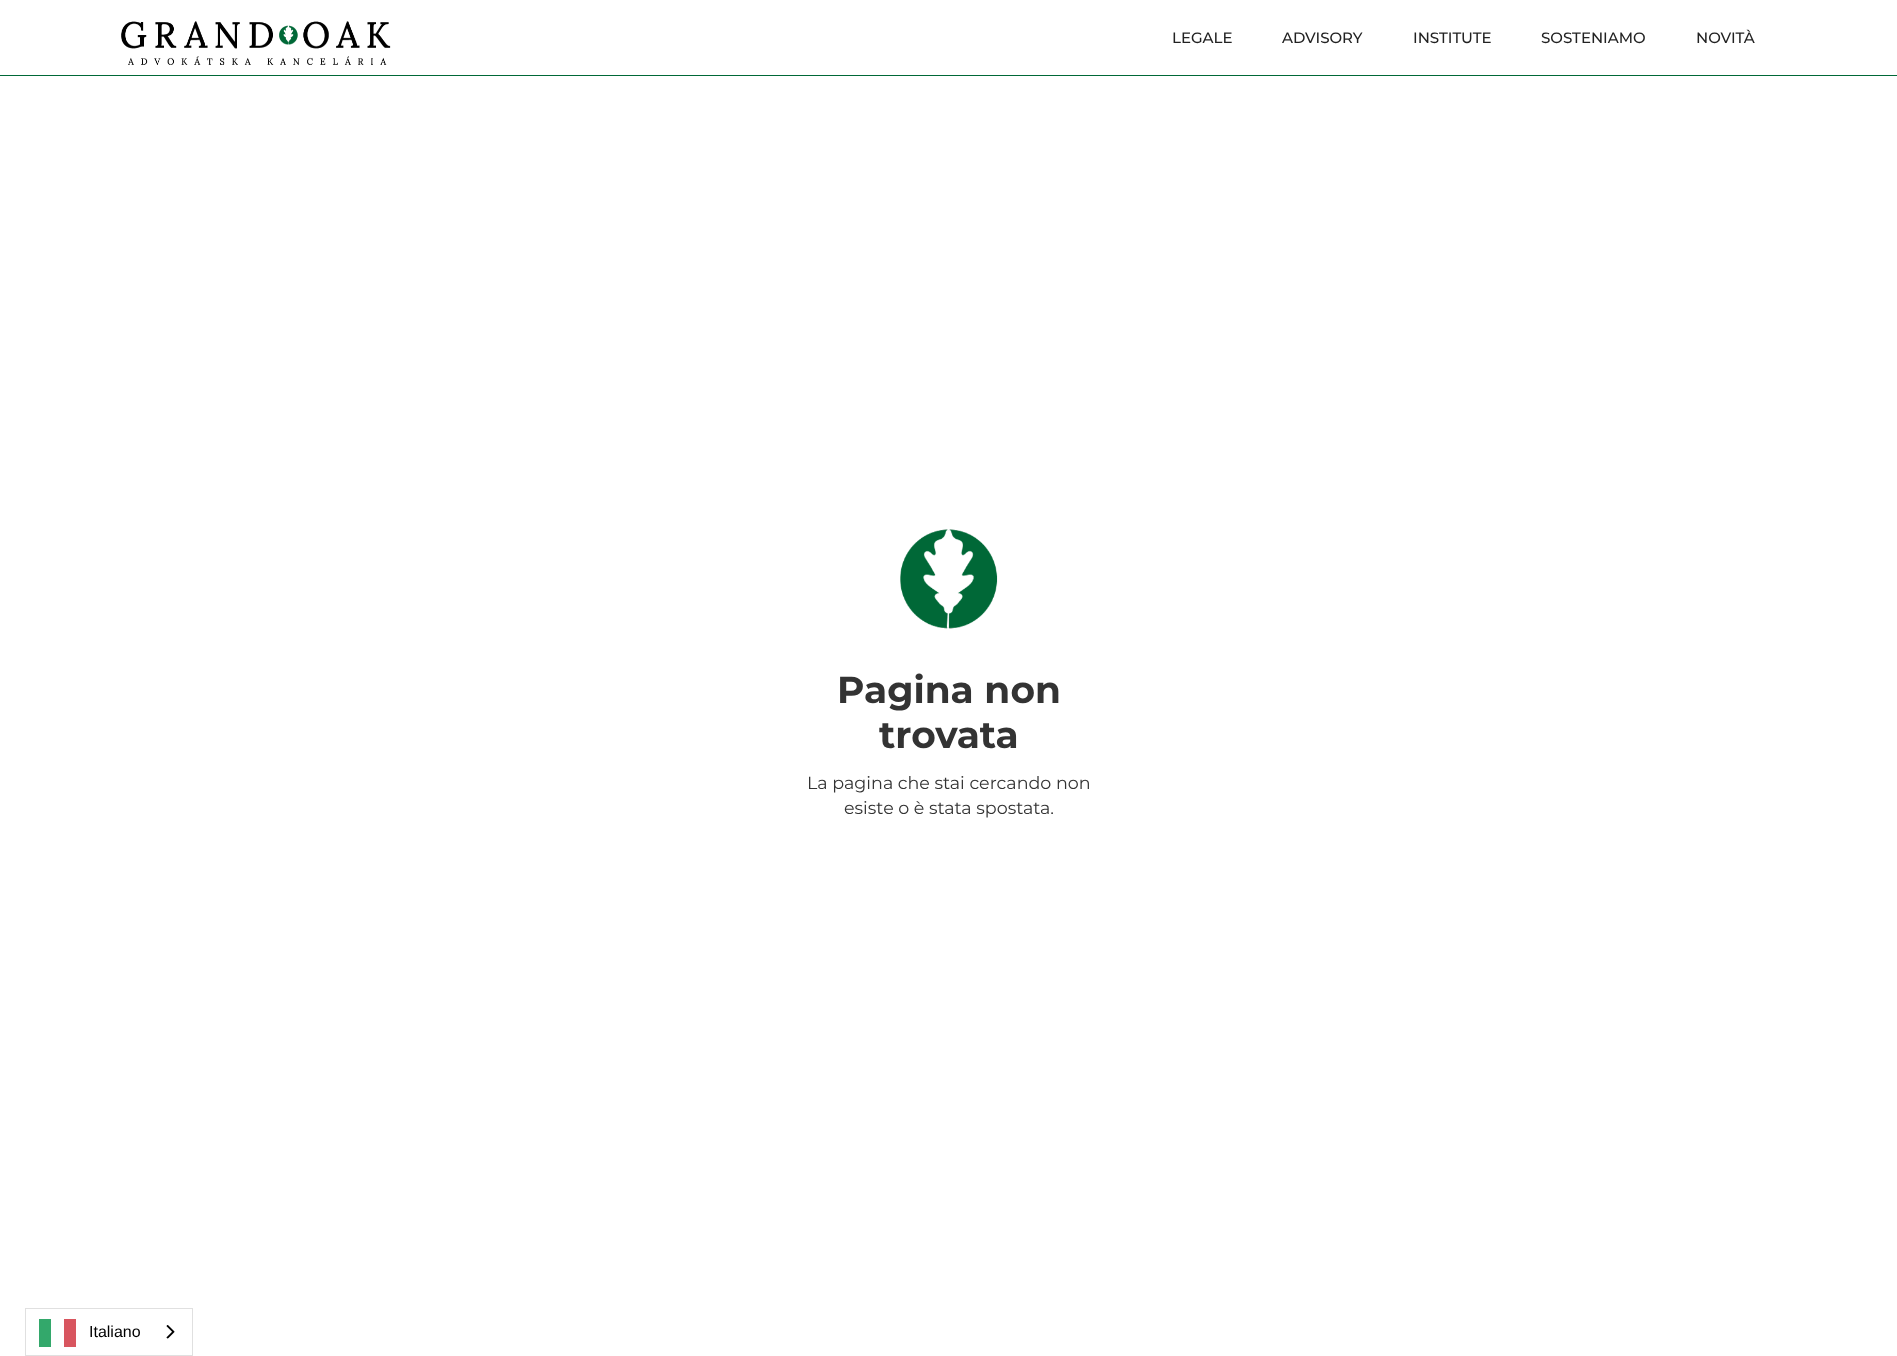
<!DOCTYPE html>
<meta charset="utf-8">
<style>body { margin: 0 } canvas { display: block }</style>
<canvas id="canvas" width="1897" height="1356"></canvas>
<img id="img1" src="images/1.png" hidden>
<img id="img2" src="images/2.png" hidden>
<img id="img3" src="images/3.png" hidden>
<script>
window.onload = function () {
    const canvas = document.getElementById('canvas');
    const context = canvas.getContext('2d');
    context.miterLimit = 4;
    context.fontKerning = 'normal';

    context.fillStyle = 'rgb(255, 255, 255)';
    context.fillRect(0, 0, 1897, 1356);
    context.fillStyle = 'rgb(0, 104, 55)';
    context.fillRect(0, 75, 1897, 1);
    context.drawImage(document.getElementById('img1'), 121, 21, 270, 44);
    context.drawImage(document.getElementById('img2'), 900, 529, 98, 100);
    context.strokeStyle = 'rgb(224, 224, 224)';
    context.strokeRect(25.5, 1308.5, 167, 47);
    context.fillStyle = 'rgb(51, 168, 107)';
    context.fillRect(39, 1319, 12, 28);
    context.fillStyle = 'rgb(216, 85, 95)';
    context.fillRect(64, 1319, 12, 28);
    context.drawImage(document.getElementById('img3'), 166, 1325, 9, 14);
    context.font = '500 15px Montserrat';
    context.fillStyle = 'rgb(34, 34, 34)';
    context.fillText('LEGALE', 1172, 43);
    context.fillText('ADVISORY', 1282, 43);
    context.fillText('INSTITUTE', 1413, 43);
    context.fillText('SOSTENIAMO', 1541, 43);
    context.fillText('NOVITÀ', 1696, 43);
    context.font = 'bold 37.5px Montserrat';
    context.fillStyle = 'rgb(51, 51, 51)';
    context.fillText('Pagina non', 837, 703);
    context.fillText('trovata', 879, 748);
    context.font = '17.5px Montserrat';
    context.fillText('La pagina che stai cercando non', 807, 789);
    context.fillText('esiste o è stata spostata.', 844, 814);
    context.font = '16px Liberation Sans';
    context.fillStyle = 'rgb(0, 0, 0)';
    context.fillText('Italiano', 89, 1337);
};
</script>
